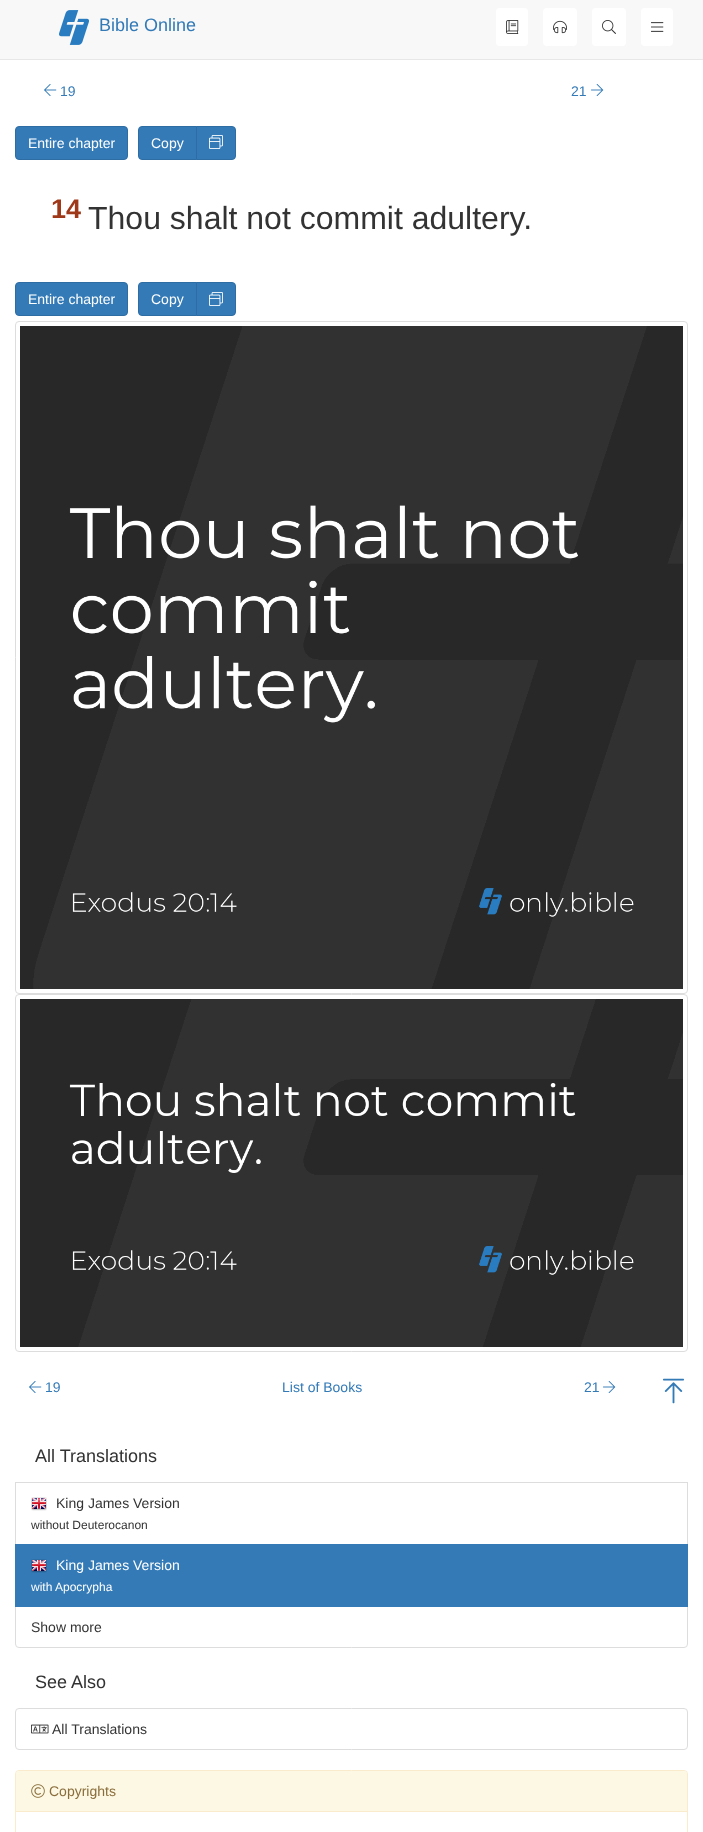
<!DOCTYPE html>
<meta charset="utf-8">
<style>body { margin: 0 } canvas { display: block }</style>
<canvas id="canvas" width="703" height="1832"></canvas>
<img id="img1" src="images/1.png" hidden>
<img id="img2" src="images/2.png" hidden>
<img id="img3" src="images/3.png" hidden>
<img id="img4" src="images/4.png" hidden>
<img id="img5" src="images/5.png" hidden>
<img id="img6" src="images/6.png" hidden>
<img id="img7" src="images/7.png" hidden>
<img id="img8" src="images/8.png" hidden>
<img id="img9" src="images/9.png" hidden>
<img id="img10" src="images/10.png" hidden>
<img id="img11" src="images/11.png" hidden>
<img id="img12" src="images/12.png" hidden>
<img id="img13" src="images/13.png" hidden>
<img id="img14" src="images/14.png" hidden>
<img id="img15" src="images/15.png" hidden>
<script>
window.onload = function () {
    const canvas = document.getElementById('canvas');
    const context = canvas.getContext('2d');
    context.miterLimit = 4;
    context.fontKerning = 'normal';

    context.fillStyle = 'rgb(255, 255, 255)';
    context.fillRect(0, 0, 703, 1832);
    context.fillStyle = 'rgb(248, 248, 248)';
    context.fillRect(0, 0, 703, 59);
    context.fillStyle = 'rgb(231, 231, 231)';
    context.fillRect(0, 59, 703, 1);
    context.drawImage(document.getElementById('img1'), 59, 10, 31, 35);
    context.fillStyle = 'rgb(255, 255, 255)';
    context.beginPath();
    context.roundRect(496, 8, 32, 38, 4);
    context.fill();
    context.drawImage(document.getElementById('img2'), 506, 20, 13, 14);
    context.beginPath();
    context.roundRect(543, 8, 34, 38, 4);
    context.fill();
    context.drawImage(document.getElementById('img3'), 553, 20, 14, 14);
    context.beginPath();
    context.roundRect(592, 8, 34, 38, 4);
    context.fill();
    context.drawImage(document.getElementById('img4'), 602, 20, 14, 14);
    context.beginPath();
    context.roundRect(641, 8, 32, 38, 4);
    context.fill();
    context.drawImage(document.getElementById('img5'), 651, 22, 13, 10);
    context.drawImage(document.getElementById('img6'), 44, 84, 13, 12);
    context.drawImage(document.getElementById('img7'), 591, 84, 13, 12);
    context.fillStyle = 'rgb(51, 122, 183)';
    context.beginPath();
    context.roundRect(15.5, 126.5, 112, 33, 3.5);
    context.fill();
    context.strokeStyle = 'rgb(46, 109, 164)';
    context.stroke();
    context.beginPath();
    context.roundRect(138.5, 126.5, 58, 33, [3.5, 0, 0, 3.5]);
    context.fill();
    context.stroke();
    context.beginPath();
    context.roundRect(196.5, 126.5, 39, 33, [0, 3.5, 3.5, 0]);
    context.fill();
    context.stroke();
    context.drawImage(document.getElementById('img8'), 209, 135, 14, 14);
    context.beginPath();
    context.roundRect(15.5, 282.5, 112, 33, 3.5);
    context.fill();
    context.stroke();
    context.beginPath();
    context.roundRect(138.5, 282.5, 58, 33, [3.5, 0, 0, 3.5]);
    context.fill();
    context.stroke();
    context.beginPath();
    context.roundRect(196.5, 282.5, 39, 33, [0, 3.5, 3.5, 0]);
    context.fill();
    context.stroke();
    context.drawImage(document.getElementById('img8'), 209, 292, 14, 14);
    context.beginPath();
    context.roundRect(15.5, 321.5, 672, 672, 3.5);
    context.strokeStyle = 'rgb(221, 221, 221)';
    context.stroke();
    context.drawImage(document.getElementById('img9'), 20, 326, 663, 663);
    context.beginPath();
    context.roundRect(15.5, 994.5, 672, 357, 3.5);
    context.stroke();
    context.drawImage(document.getElementById('img10'), 20, 999, 663, 348);
    context.drawImage(document.getElementById('img6'), 29, 1381, 13, 12);
    context.drawImage(document.getElementById('img7'), 603, 1381, 13, 12);
    context.drawImage(document.getElementById('img11'), 663, 1378, 21, 26);
    context.strokeRect(15.5, 1482.5, 672, 62);
    context.drawImage(document.getElementById('img12'), 31, 1497, 16, 14);
    context.beginPath();
    context.roundRect(15.5, 1606.5, 672, 41, [0, 0, 3.5, 3.5]);
    context.stroke();
    context.fillRect(15, 1544, 673, 63);
    context.drawImage(document.getElementById('img13'), 31, 1559, 16, 14);
    context.beginPath();
    context.roundRect(15.5, 1708.5, 672, 41, 3.5);
    context.stroke();
    context.drawImage(document.getElementById('img14'), 31, 1724, 18, 10);
    context.beginPath();
    context.roundRect(15.5, 1770.5, 672, 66, 3.5);
    context.strokeStyle = 'rgb(250, 235, 204)';
    context.stroke();
    context.fillStyle = 'rgb(252, 248, 227)';
    context.beginPath();
    context.roundRect(16, 1771, 671, 41, [3, 3, 0, 0]);
    context.fill();
    context.fillStyle = 'rgb(250, 235, 204)';
    context.fillRect(16, 1811, 671, 1);
    context.drawImage(document.getElementById('img15'), 31, 1784, 14, 14);
    context.font = '18px Liberation Sans';
    context.fillStyle = 'rgb(51, 122, 183)';
    context.fillText('Bible Online', 99, 31);
    context.font = '14px Liberation Sans';
    context.fillText('19', 60, 96);
    context.fillText('21', 571, 96);
    context.fillStyle = 'rgb(255, 255, 255)';
    context.fillText('Entire chapter', 28, 148);
    context.fillText('Copy', 151, 148);
    context.font = 'bold 27px Liberation Sans';
    context.fillStyle = 'rgb(159, 56, 25)';
    context.fillText('14', 51, 218);
    context.font = '32px Liberation Sans';
    context.fillStyle = 'rgb(51, 51, 51)';
    context.fillText('Thou shalt not commit adultery.', 88, 229);
    context.font = '14px Liberation Sans';
    context.fillStyle = 'rgb(255, 255, 255)';
    context.fillText('Entire chapter', 28, 304);
    context.fillText('Copy', 151, 304);
    context.fillStyle = 'rgb(51, 122, 183)';
    context.fillText('19', 45, 1392);
    context.fillText('List of Books', 282, 1392);
    context.fillText('21', 584, 1392);
    context.font = '18px Liberation Sans';
    context.fillStyle = 'rgb(51, 51, 51)';
    context.fillText('All Translations', 35, 1462);
    context.font = '14px Liberation Sans';
    context.fillText('King James Version', 56, 1508);
    context.font = '12px Liberation Sans';
    context.fillText('without Deuterocanon', 31, 1529);
    context.font = '14px Liberation Sans';
    context.fillStyle = 'rgb(255, 255, 255)';
    context.fillText('King James Version', 56, 1570);
    context.font = '12px Liberation Sans';
    context.fillText('with Apocrypha', 31, 1591);
    context.font = '14px Liberation Sans';
    context.fillStyle = 'rgb(51, 51, 51)';
    context.fillText('Show more', 31, 1632);
    context.font = '18px Liberation Sans';
    context.fillText('See Also', 35, 1688);
    context.font = '14px Liberation Sans';
    context.fillText('All Translations', 52, 1734);
    context.fillStyle = 'rgb(138, 109, 59)';
    context.fillText('Copyrights', 49, 1796);
};
</script>
